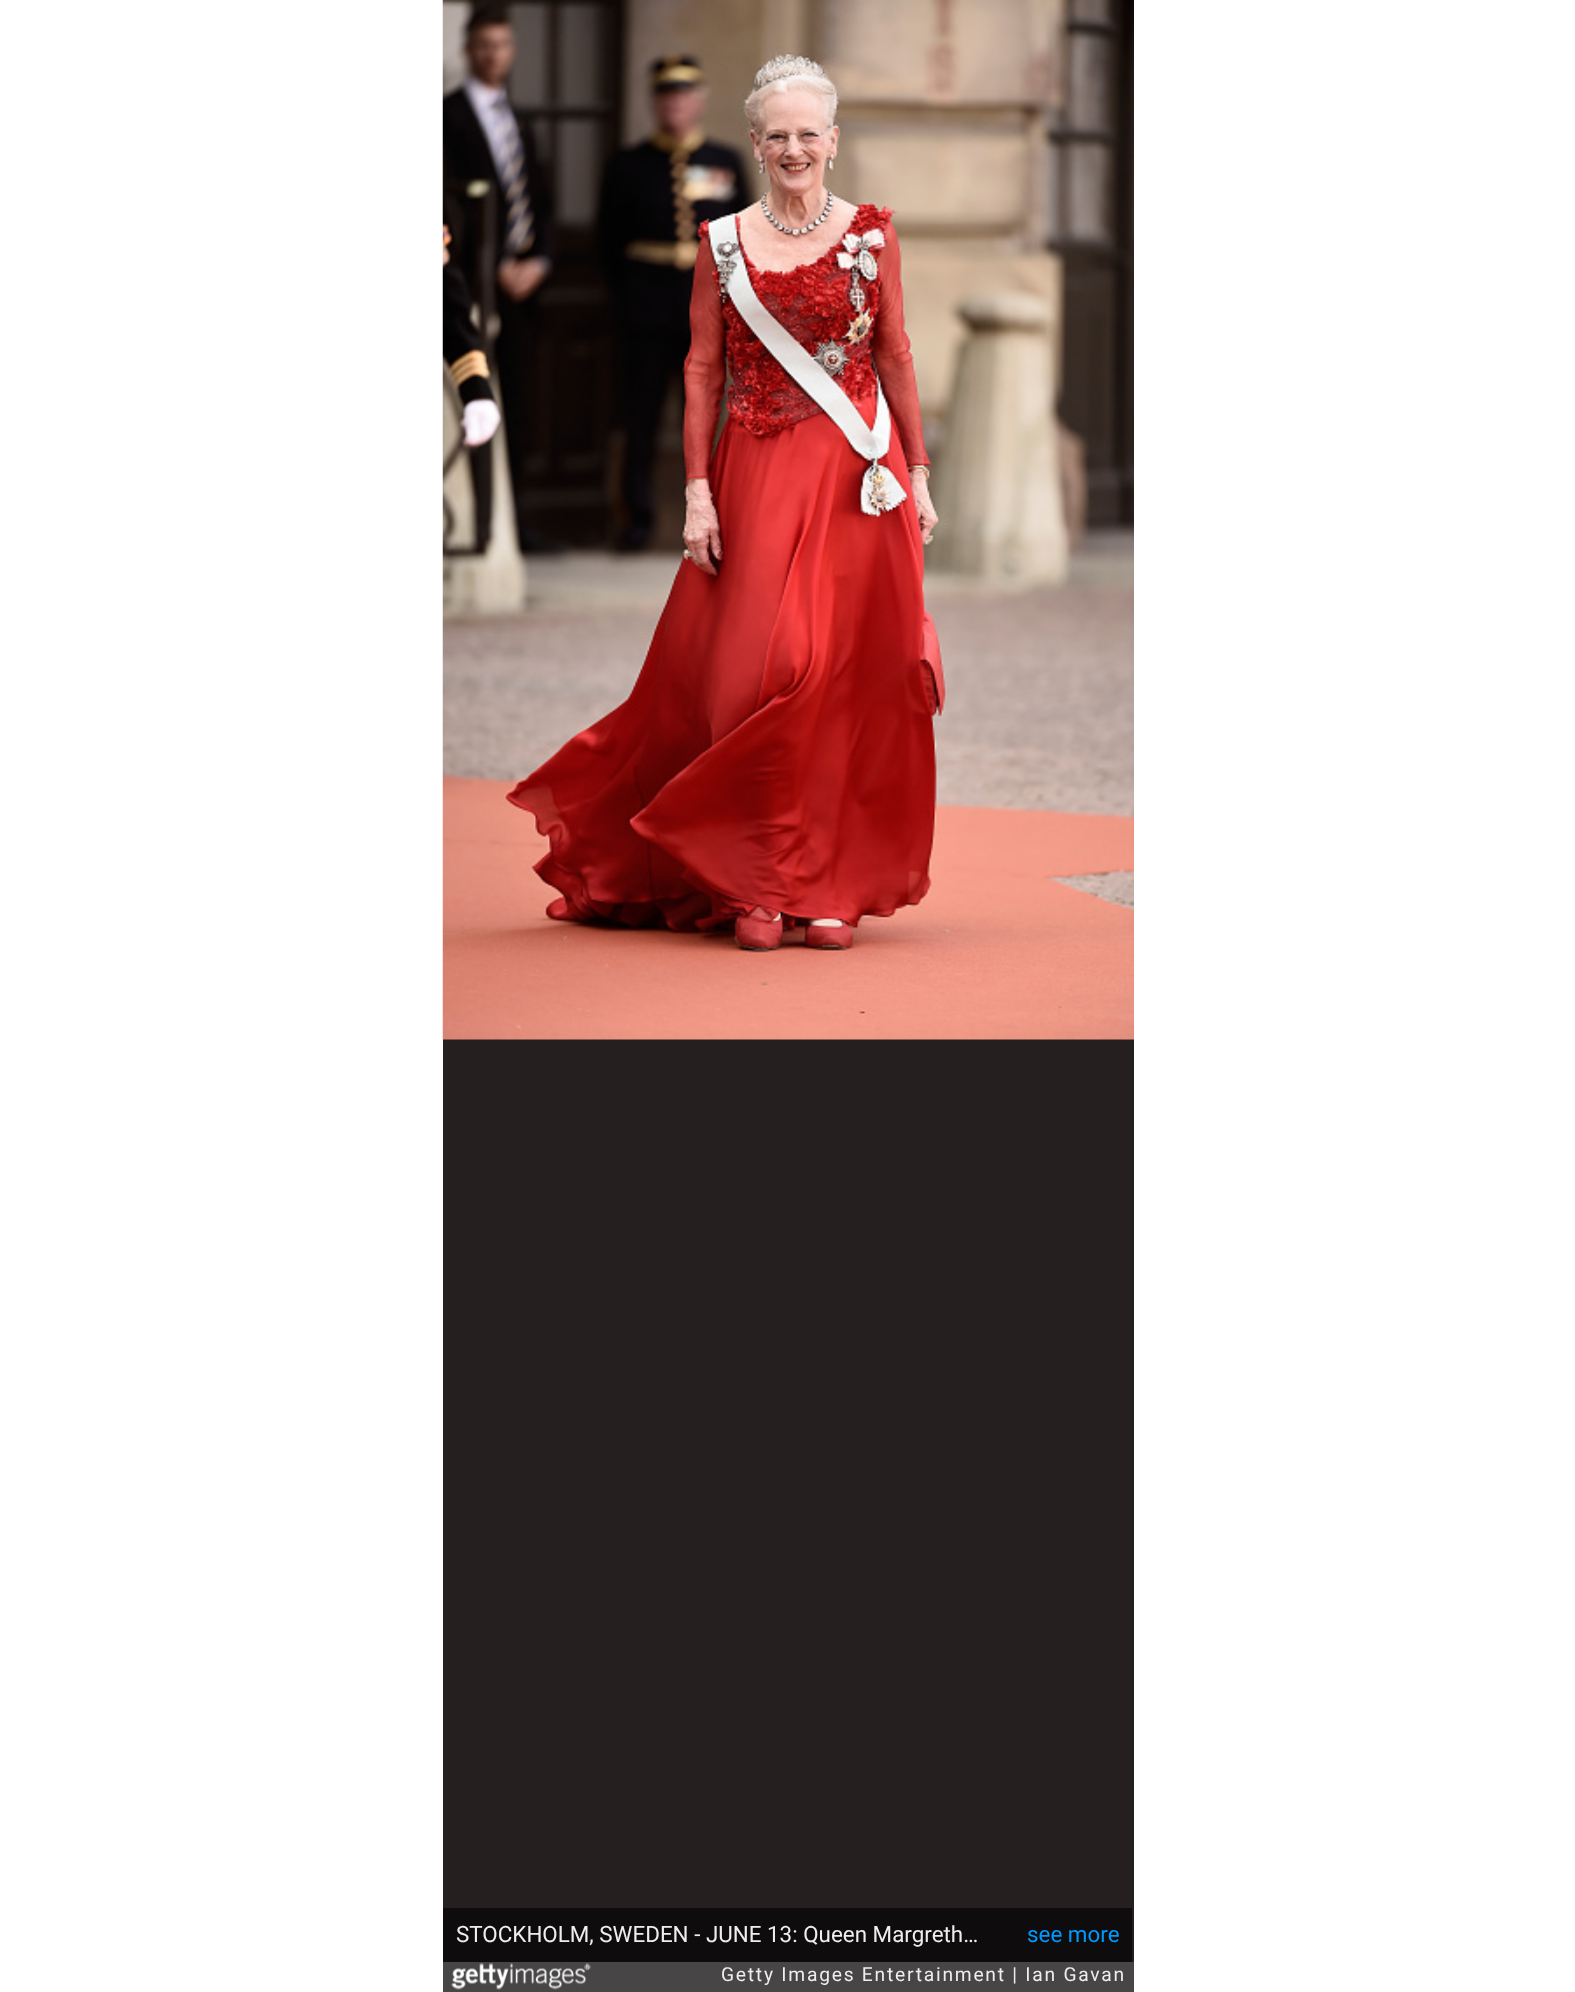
<!DOCTYPE html>
<meta charset="utf-8">
<style>body { margin: 0 } canvas { display: block }</style>
<canvas id="canvas" width="1575" height="1992"></canvas>
<img id="img1" src="images/1.png" hidden>
<img id="img2" src="images/2.png" hidden>
<script>
window.onload = function () {
    const canvas = document.getElementById('canvas');
    const context = canvas.getContext('2d');
    context.miterLimit = 4;
    context.fontKerning = 'normal';

    context.fillStyle = 'rgb(255, 255, 255)';
    context.fillRect(0, 0, 1575, 1992);
    context.fillStyle = 'rgb(37, 31, 32)';
    context.fillRect(443, 1039, 691, 923);
    context.drawImage(document.getElementById('img1'), 442, 0, 692, 1040);
    context.fillStyle = 'rgb(15, 12, 13)';
    context.fillRect(443, 1908, 689, 54);
    context.fillStyle = 'rgb(71, 69, 69)';
    context.fillRect(443, 1962, 691, 30);
    context.drawImage(document.getElementById('img2'), 451, 1963, 140, 27);
    context.font = '22.4px Roboto';
    context.fillStyle = 'rgb(238, 238, 238)';
    context.fillText('STOCKHOLM, SWEDEN - JUNE 13: Queen Margreth…', 456, 1942);
    context.fillStyle = 'rgb(0, 153, 255)';
    context.fillText('see more', 1027, 1942);
    context.letterSpacing = '1.75px';
    context.font = '19.25px Roboto';
    context.fillStyle = 'rgb(238, 238, 238)';
    context.fillText('Getty Images Entertainment | Ian Gavan', 721, 1981);
};
</script>
